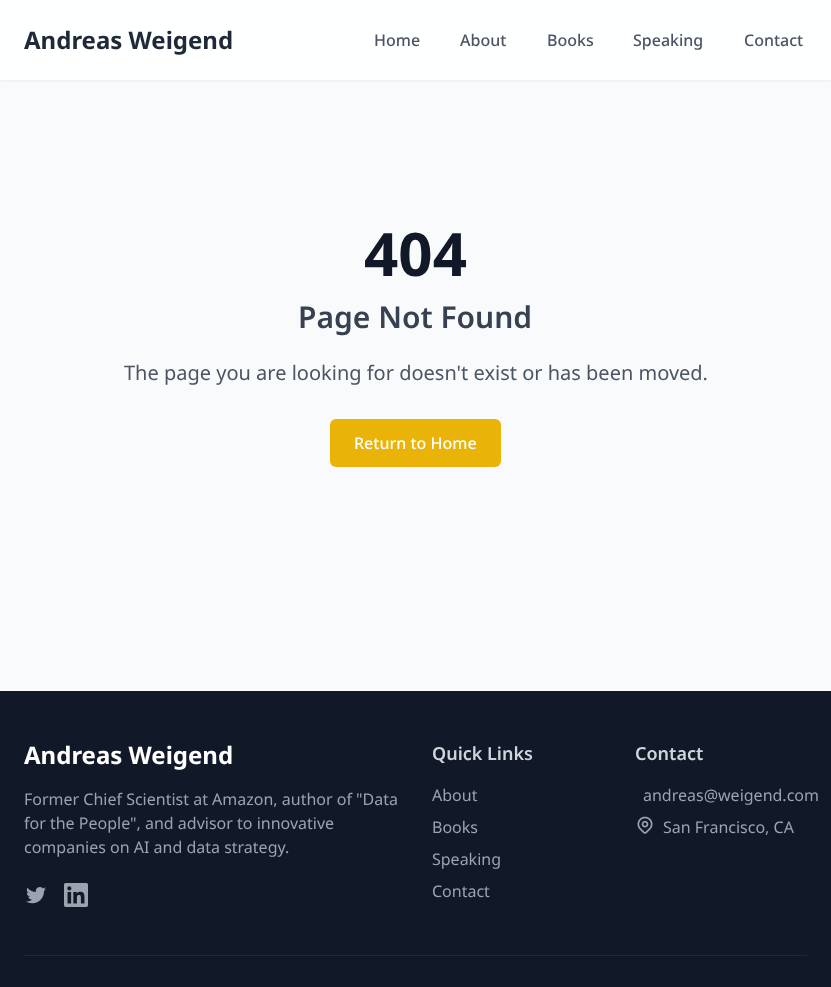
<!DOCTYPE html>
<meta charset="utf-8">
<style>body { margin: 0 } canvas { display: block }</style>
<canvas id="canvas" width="831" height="987"></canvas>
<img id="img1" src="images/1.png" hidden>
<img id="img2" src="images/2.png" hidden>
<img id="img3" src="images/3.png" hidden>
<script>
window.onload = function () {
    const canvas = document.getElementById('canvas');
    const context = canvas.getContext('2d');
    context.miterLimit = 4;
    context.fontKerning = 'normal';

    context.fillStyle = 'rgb(249, 250, 251)';
    context.fillRect(0, 0, 831, 987);
    context.fillStyle = 'rgba(0, 0, 0, 0.05)';
    context.filter = 'blur(1px)';
    context.beginPath();
    context.rect(0, 1, 831, 80);
    context.fill();
    context.filter = 'none';
    context.fillStyle = 'rgb(254, 255, 255)';
    context.fillRect(0, 0, 831, 80);
    context.fillStyle = 'rgb(234, 179, 8)';
    context.beginPath();
    context.roundRect(330, 419, 171, 48, 6);
    context.fill();
    context.fillStyle = 'rgb(17, 24, 39)';
    context.fillRect(0, 691, 831, 296);
    context.drawImage(document.getElementById('img1'), 26, 887, 20, 17);
    context.drawImage(document.getElementById('img2'), 64, 883, 24, 24);
    context.drawImage(document.getElementById('img3'), 637, 816, 16, 18);
    context.fillStyle = 'rgb(31, 41, 55)';
    context.fillRect(24, 955, 783, 1);
    context.font = 'bold 24px Noto Sans';
    context.fillText('Andreas Weigend', 24, 49);
    context.font = '500 16px Noto Sans';
    context.fillStyle = 'rgb(75, 85, 99)';
    context.fillText('Home', 374, 46);
    context.fillText('About', 460, 46);
    context.fillText('Books', 547, 46);
    context.fillText('Speaking', 633, 46);
    context.fillText('Contact', 744, 46);
    context.font = 'bold 60px Noto Sans';
    context.fillStyle = 'rgb(17, 24, 39)';
    context.fillText('404', 364, 276);
    context.font = '600 30px Noto Sans';
    context.fillStyle = 'rgb(55, 65, 81)';
    context.fillText('Page Not Found', 298, 328);
    context.font = '20px Noto Sans';
    context.fillStyle = 'rgb(75, 85, 99)';
    context.fillText('The page you are looking for doesn\'t exist or has been moved.', 124, 380);
    context.font = '500 16px Noto Sans';
    context.fillStyle = 'rgb(255, 255, 255)';
    context.fillText('Return to Home', 354, 449);
    context.font = 'bold 24px Noto Sans';
    context.fillText('Andreas Weigend', 24, 764);
    context.font = '16px Noto Sans';
    context.fillStyle = 'rgb(156, 163, 175)';
    context.fillText('Former Chief Scientist at Amazon, author of "Data', 24, 805);
    context.fillText('for the People", and advisor to innovative', 24, 829);
    context.fillText('companies on AI and data strategy.', 24, 853);
    context.font = '600 18px Noto Sans';
    context.fillStyle = 'rgb(209, 213, 219)';
    context.fillText('Quick Links', 432, 760);
    context.font = '16px Noto Sans';
    context.fillStyle = 'rgb(156, 163, 175)';
    context.fillText('About', 432, 801);
    context.fillText('Books', 432, 833);
    context.fillText('Speaking', 432, 865);
    context.fillText('Contact', 432, 897);
    context.font = '600 18px Noto Sans';
    context.fillStyle = 'rgb(209, 213, 219)';
    context.fillText('Contact', 635, 760);
    context.font = '16px Noto Sans';
    context.fillStyle = 'rgb(156, 163, 175)';
    context.fillText('andreas@weigend.com', 643, 801);
    context.fillText('San Francisco, CA', 663, 833);
};
</script>
